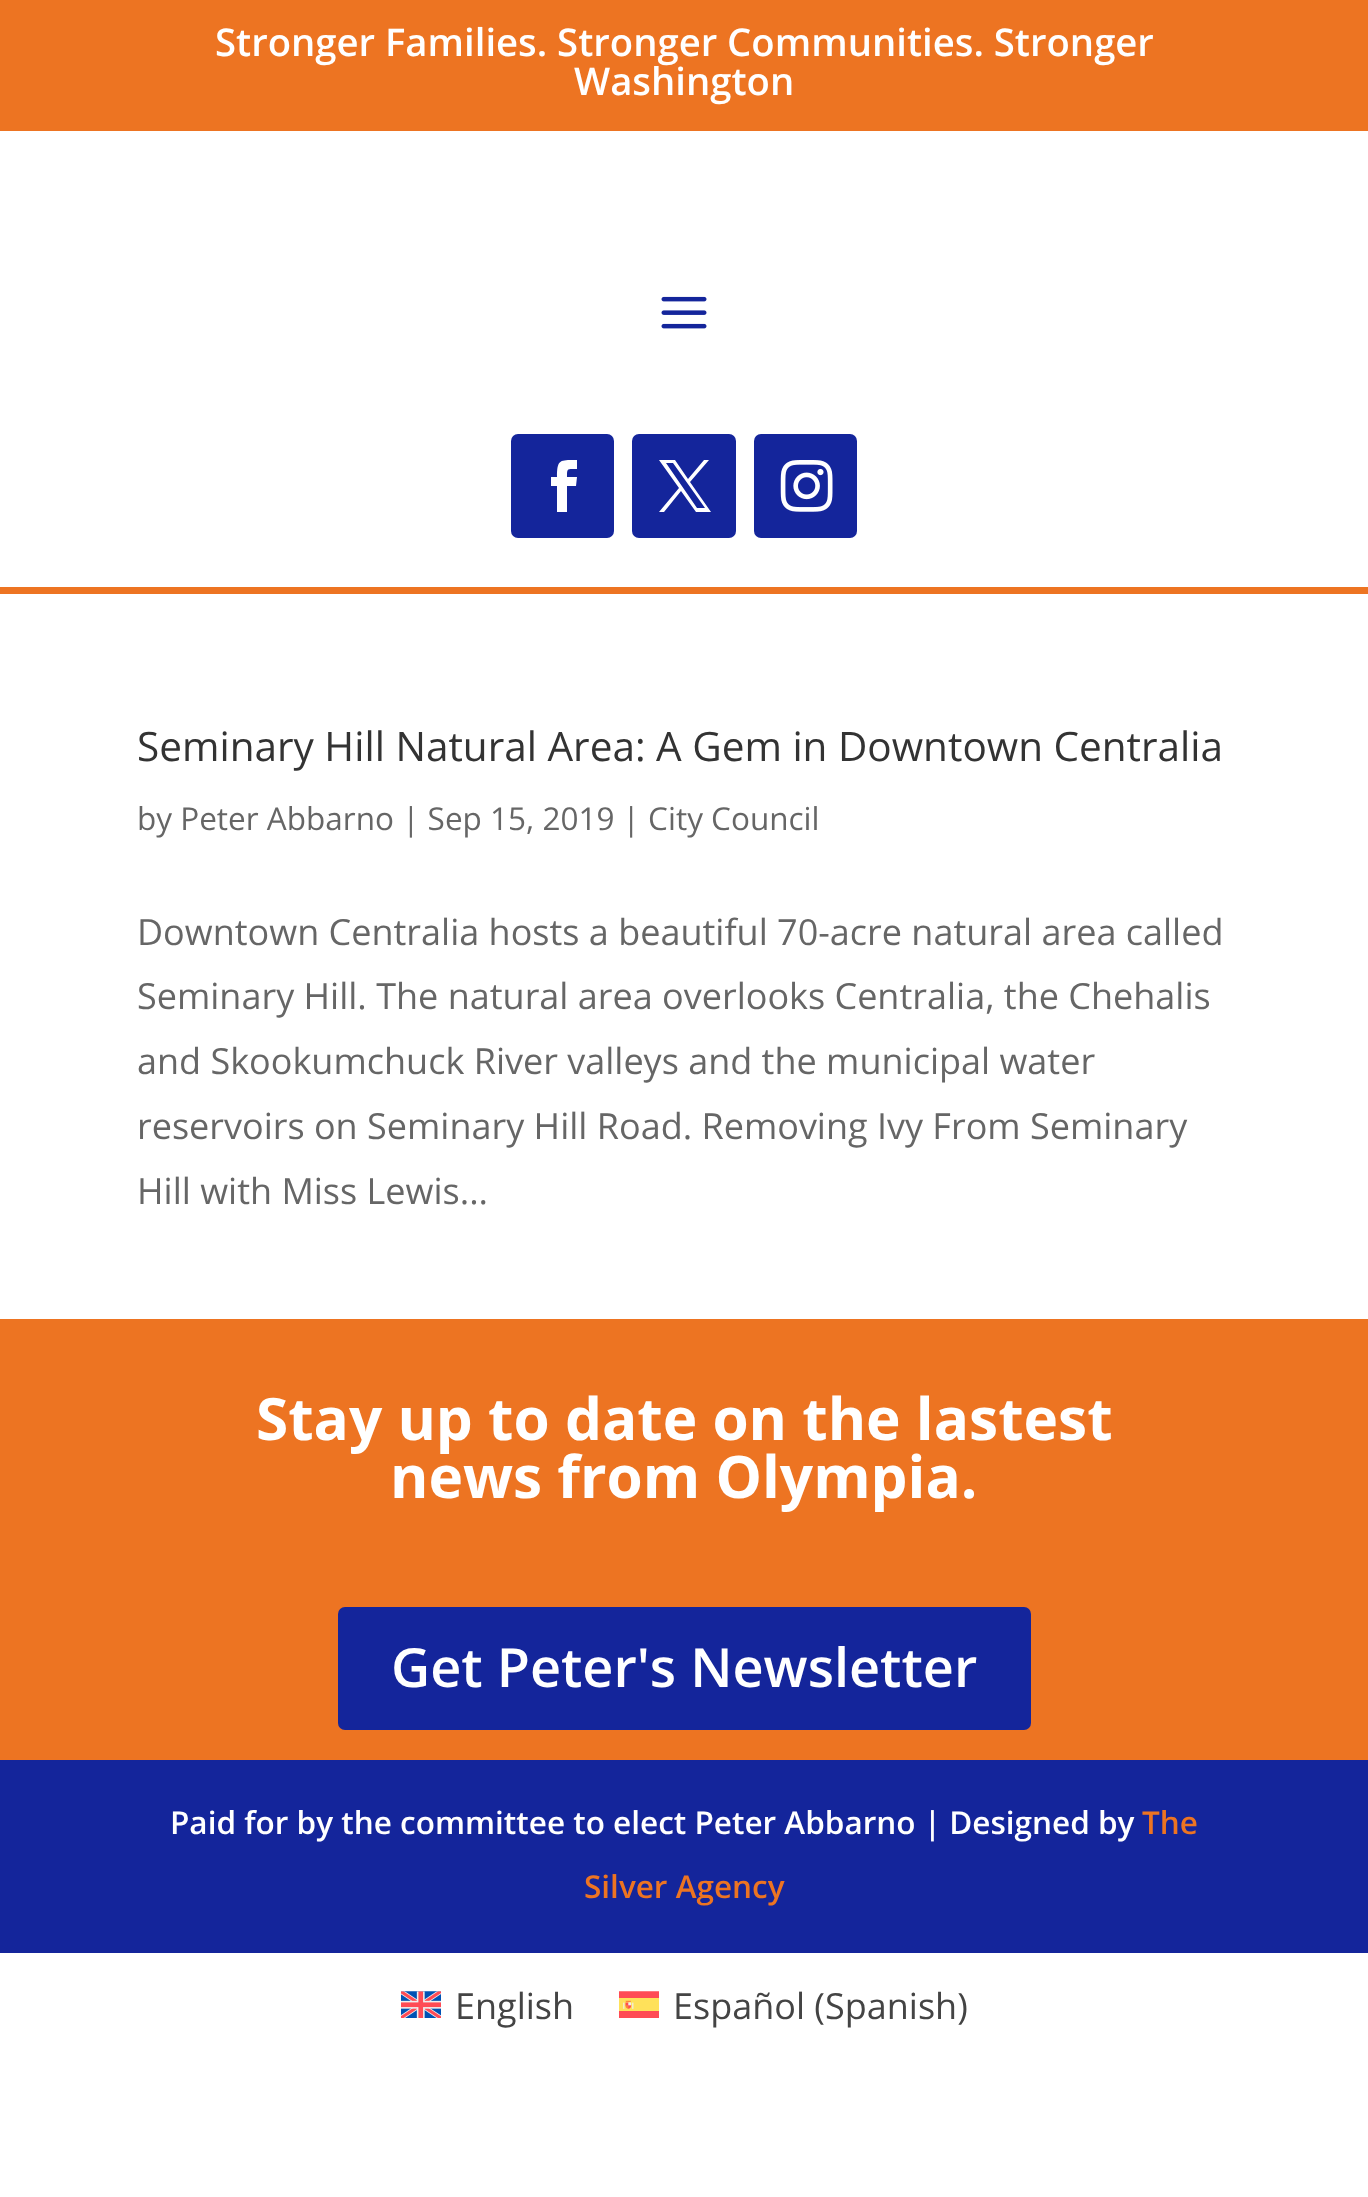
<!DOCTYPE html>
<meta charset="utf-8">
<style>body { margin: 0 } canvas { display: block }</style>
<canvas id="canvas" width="1368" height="2197"></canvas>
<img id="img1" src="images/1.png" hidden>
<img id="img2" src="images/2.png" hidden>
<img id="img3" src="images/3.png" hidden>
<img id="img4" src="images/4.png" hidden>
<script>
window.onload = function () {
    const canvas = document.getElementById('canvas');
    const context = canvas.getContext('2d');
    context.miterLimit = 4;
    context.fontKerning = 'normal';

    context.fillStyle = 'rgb(255, 255, 255)';
    context.fillRect(0, 0, 1368, 2197);
    context.fillStyle = 'rgb(237, 116, 34)';
    context.fillRect(0, 0, 1368, 131);
    context.fillRect(0, 587, 1368, 7);
    context.drawImage(document.getElementById('img1'), 661, 296, 46, 33);
    context.fillStyle = 'rgb(20, 37, 155)';
    context.beginPath();
    context.roundRect(511, 434, 103, 104, 7);
    context.fill();
    context.fillStyle = 'rgb(255, 255, 255)';
    context.beginPath();
    context.moveTo(557, 512);
    context.lineTo(567, 512);
    context.lineTo(567, 486);
    context.lineTo(576, 486);
    context.lineTo(577, 477);
    context.lineTo(567, 477);
    context.bezierCurveTo(567, 468, 567, 469, 577, 469);
    context.lineTo(577, 460);
    context.bezierCurveTo(560, 460, 557, 459, 557, 477);
    context.lineTo(551, 477);
    context.lineTo(551, 486);
    context.lineTo(557, 486);
    context.closePath();
    context.fill();
    context.fillStyle = 'rgb(20, 37, 155)';
    context.beginPath();
    context.roundRect(632, 434, 104, 104, 7);
    context.fill();
    context.fillStyle = 'rgb(255, 255, 255)';
    context.beginPath();
    context.moveTo(659, 460);
    context.lineTo(679, 488);
    context.lineTo(659, 512);
    context.lineTo(664, 512);
    context.lineTo(681, 491);
    context.lineTo(696, 512);
    context.lineTo(711, 512);
    context.lineTo(690, 482);
    context.lineTo(709, 460);
    context.lineTo(704, 460);
    context.lineTo(688, 479);
    context.lineTo(675, 460);
    context.closePath();
    context.moveTo(666, 463);
    context.lineTo(673, 463);
    context.lineTo(705, 508);
    context.lineTo(697, 508);
    context.closePath();
    context.fill();
    context.fillStyle = 'rgb(20, 37, 155)';
    context.beginPath();
    context.roundRect(754, 434, 103, 104, 7);
    context.fill();
    context.drawImage(document.getElementById('img2'), 780, 460, 53, 52);
    context.fillStyle = 'rgb(237, 116, 34)';
    context.fillRect(0, 1319, 1368, 441);
    context.fillStyle = 'rgb(20, 37, 155)';
    context.beginPath();
    context.roundRect(338, 1607, 693, 123, 7);
    context.fill();
    context.fillRect(0, 1760, 1368, 193);
    context.drawImage(document.getElementById('img3'), 401, 1991, 40, 27);
    context.drawImage(document.getElementById('img4'), 619, 1991, 40, 27);
    context.font = '600 38.25px Open Sans';
    context.fillStyle = 'rgb(255, 255, 255)';
    context.fillText('Stronger Families. Stronger Communities. Stronger', 215, 56);
    context.fillText('Washington', 574, 95);
    context.font = '40.5px Open Sans';
    context.fillStyle = 'rgb(51, 51, 51)';
    context.fillText('Seminary Hill Natural Area: A Gem in Downtown Centralia', 137, 761);
    context.font = '31.5px Open Sans';
    context.fillStyle = 'rgb(102, 102, 102)';
    context.fillText('by Peter Abbarno | Sep 15, 2019 | City Council', 137, 830);
    context.font = '36px Open Sans';
    context.fillText('Downtown Centralia hosts a beautiful 70-acre natural area called', 137, 945);
    context.fillText('Seminary Hill. The natural area overlooks Centralia, the Chehalis', 137, 1009);
    context.fillText('and Skookumchuck River valleys and the municipal water', 137, 1074);
    context.fillText('reservoirs on Seminary Hill Road. Removing Ivy From Seminary', 137, 1139);
    context.fillText('Hill with Miss Lewis...', 137, 1204);
    context.font = 'bold 58.5px Open Sans';
    context.fillStyle = 'rgb(255, 255, 255)';
    context.fillText('Stay up to date on the lastest', 256, 1440);
    context.fillText('news from Olympia.', 390, 1498);
    context.font = '600 54px Open Sans';
    context.fillText('Get Peter\'s Newsletter', 391, 1687);
    context.font = '600 31.5px Open Sans';
    context.fillText('Paid for by the committee to elect Peter Abbarno | Designed by', 170, 1834);
    context.fillStyle = 'rgb(237, 116, 34)';
    context.fillText('The', 1142, 1834);
    context.fillText('Silver Agency', 584, 1898);
    context.font = '36px Open Sans';
    context.fillStyle = 'rgb(68, 68, 68)';
    context.fillText('English', 455, 2019);
    context.fillText('Español (Spanish)', 673, 2019);
};
</script>
